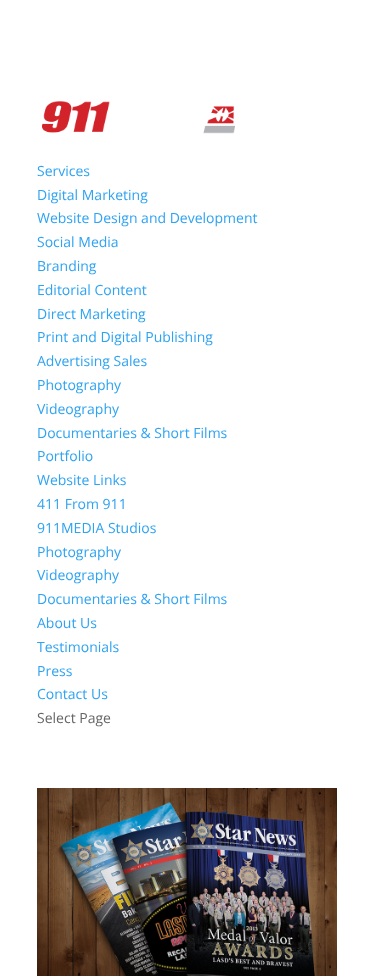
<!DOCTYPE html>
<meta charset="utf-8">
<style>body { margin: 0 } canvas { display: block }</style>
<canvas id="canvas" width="374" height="976"></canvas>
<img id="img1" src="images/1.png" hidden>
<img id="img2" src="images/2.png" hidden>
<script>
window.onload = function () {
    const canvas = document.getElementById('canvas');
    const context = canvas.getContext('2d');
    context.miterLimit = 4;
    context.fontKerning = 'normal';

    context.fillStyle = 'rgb(255, 255, 255)';
    context.fillRect(0, 0, 374, 976);
    context.drawImage(document.getElementById('img1'), 42, 101, 193, 33);
    context.drawImage(document.getElementById('img2'), 37, 788, 300, 188);
    context.font = '14px Open Sans';
    context.fillStyle = 'rgb(46, 163, 242)';
    context.fillText('Services', 37, 176);
    context.fillText('Digital Marketing', 37, 200);
    context.fillText('Website Design and Development', 37, 223);
    context.fillText('Social Media', 37, 247);
    context.fillText('Branding', 37, 271);
    context.fillText('Editorial Content', 37, 295);
    context.fillText('Direct Marketing', 37, 319);
    context.fillText('Print and Digital Publishing', 37, 342);
    context.fillText('Advertising Sales', 37, 366);
    context.fillText('Photography', 37, 390);
    context.fillText('Videography', 37, 414);
    context.fillText('Documentaries & Short Films', 37, 438);
    context.fillText('Portfolio', 37, 461);
    context.fillText('Website Links', 37, 485);
    context.fillText('411 From 911', 37, 509);
    context.fillText('911MEDIA Studios', 37, 533);
    context.fillText('Photography', 37, 557);
    context.fillText('Videography', 37, 580);
    context.fillText('Documentaries & Short Films', 37, 604);
    context.fillText('About Us', 37, 628);
    context.fillText('Testimonials', 37, 652);
    context.fillText('Press', 37, 676);
    context.fillText('Contact Us', 37, 699);
    context.fillStyle = 'rgb(102, 102, 102)';
    context.fillText('Select Page', 37, 723);
};
</script>
